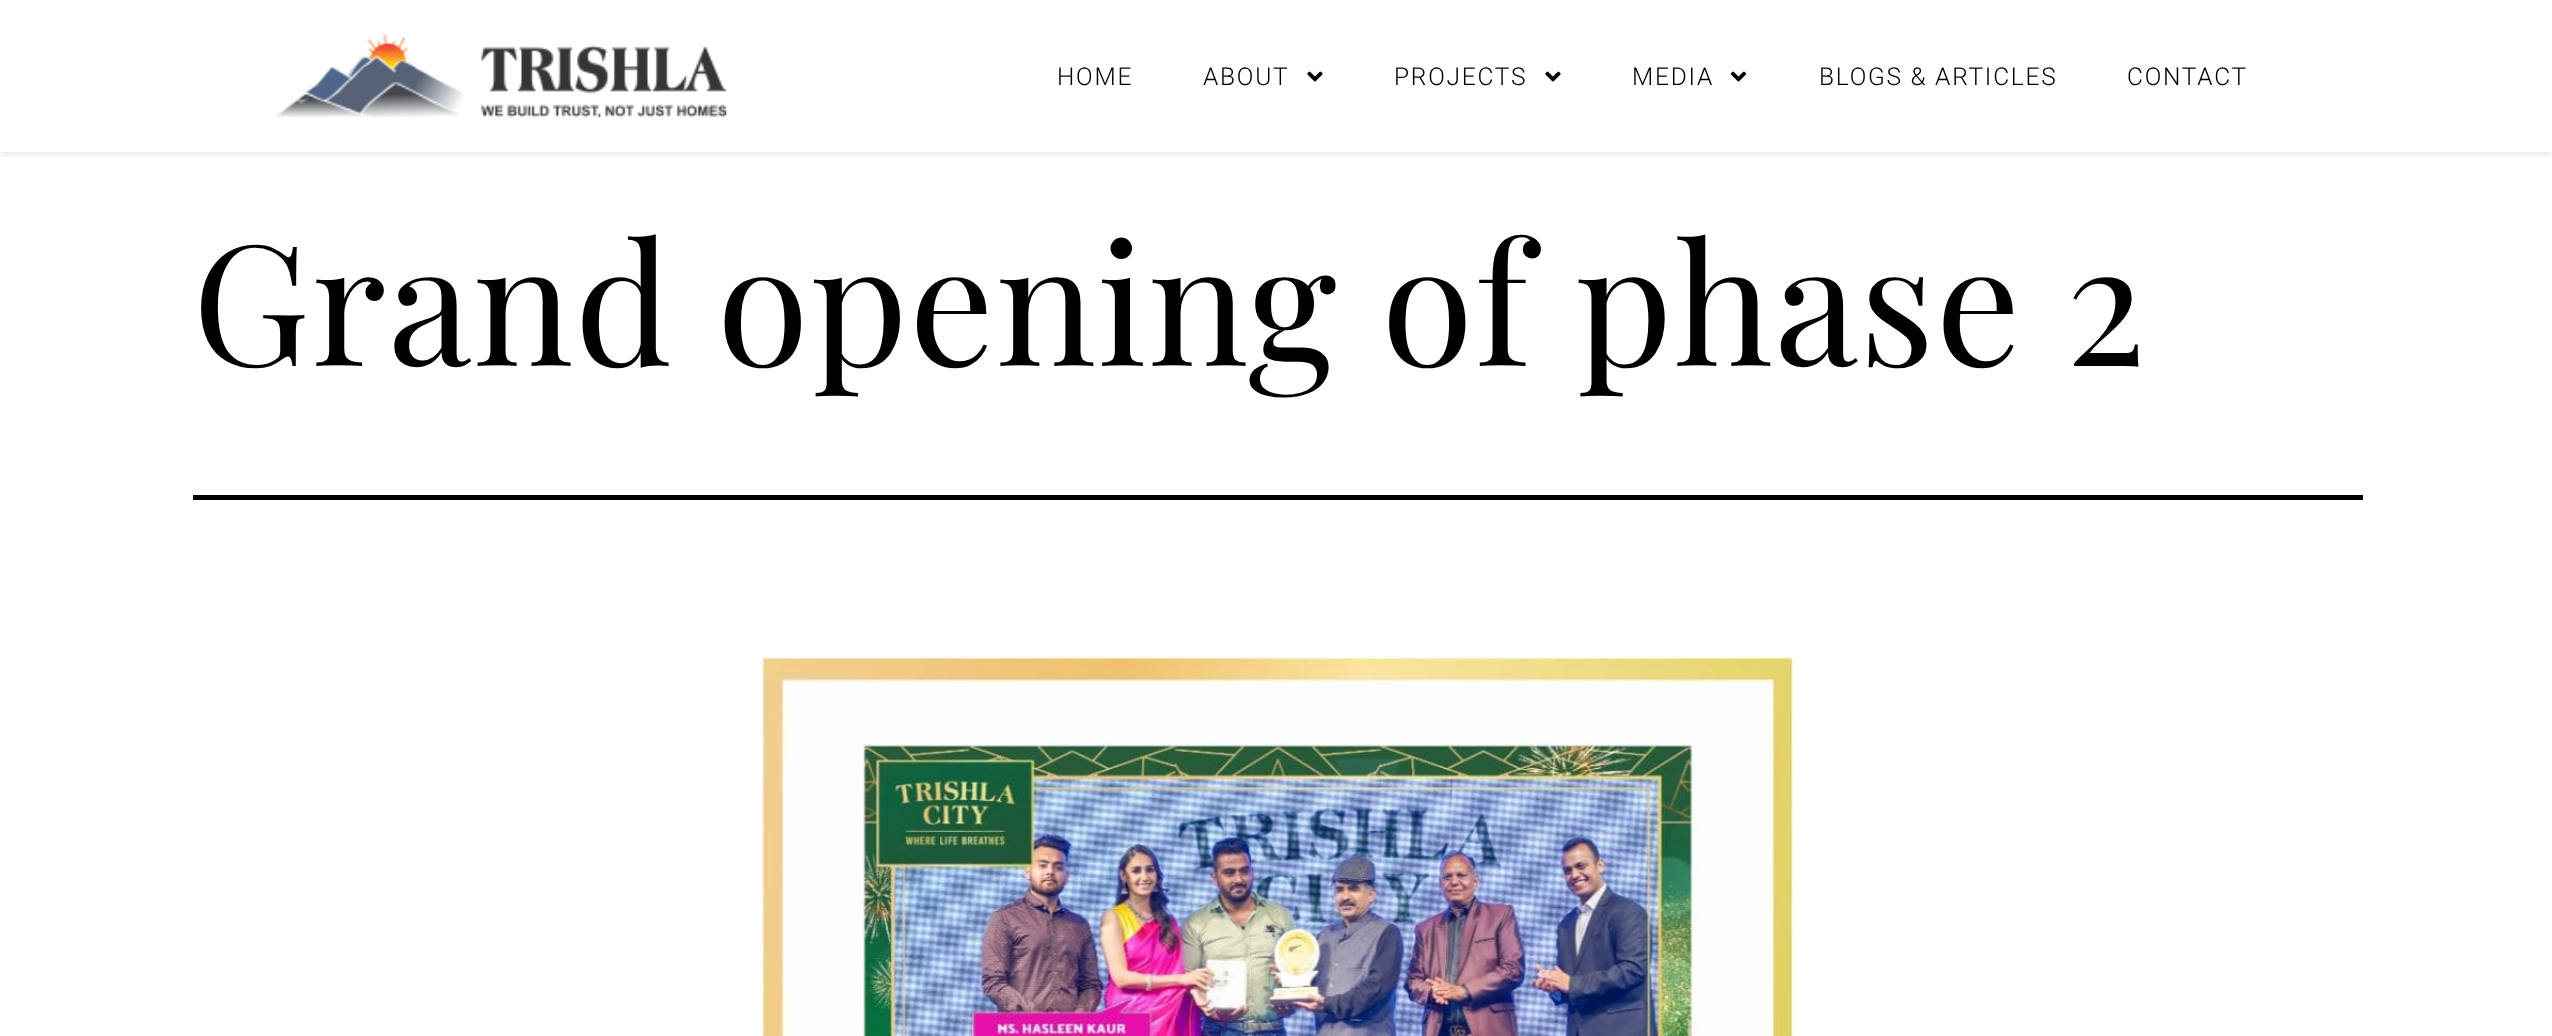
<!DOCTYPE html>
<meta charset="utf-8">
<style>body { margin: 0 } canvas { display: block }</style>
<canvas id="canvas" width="2552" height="1036"></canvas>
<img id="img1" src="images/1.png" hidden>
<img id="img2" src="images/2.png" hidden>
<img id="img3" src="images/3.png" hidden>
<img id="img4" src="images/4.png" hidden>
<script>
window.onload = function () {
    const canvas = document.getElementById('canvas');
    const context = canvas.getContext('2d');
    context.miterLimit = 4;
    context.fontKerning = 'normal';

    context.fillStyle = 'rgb(255, 255, 255)';
    context.fillRect(0, 0, 2552, 1036);
    context.save();
    context.beginPath();
    context.rect(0, 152, 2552, 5);
    context.clip();
    context.fillStyle = 'rgba(0, 0, 0, 0.17)';
    context.filter = 'blur(4.5px)';
    context.beginPath();
    context.rect(0, 0, 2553, 152);
    context.fill();
    context.filter = 'none';
    context.restore();
    context.drawImage(document.getElementById('img1'), 276, 35, 451, 83);
    context.drawImage(document.getElementById('img2'), 1307, 71, 16, 11);
    context.drawImage(document.getElementById('img2'), 1545, 71, 16, 11);
    context.drawImage(document.getElementById('img3'), 1730, 71, 17, 11);
    context.fillStyle = 'rgb(0, 0, 0)';
    context.fillRect(193, 495, 2170, 5);
    context.drawImage(document.getElementById('img4'), 760, 658, 1041, 378);
    context.letterSpacing = '1.75px';
    context.font = '300 24.5px Roboto';
    context.fillText('HOME', 1057, 85);
    context.fillText('ABOUT', 1203, 85);
    context.fillText('PROJECTS', 1394, 85);
    context.fillText('MEDIA', 1632, 85);
    context.fillText('BLOGS & ARTICLES', 1819, 85);
    context.fillText('CONTACT', 2127, 85);
    context.letterSpacing = '1.4px';
    context.font = '168px Playfair Display';
    context.fillText('Grand opening of phase 2', 192, 366);
};
</script>
